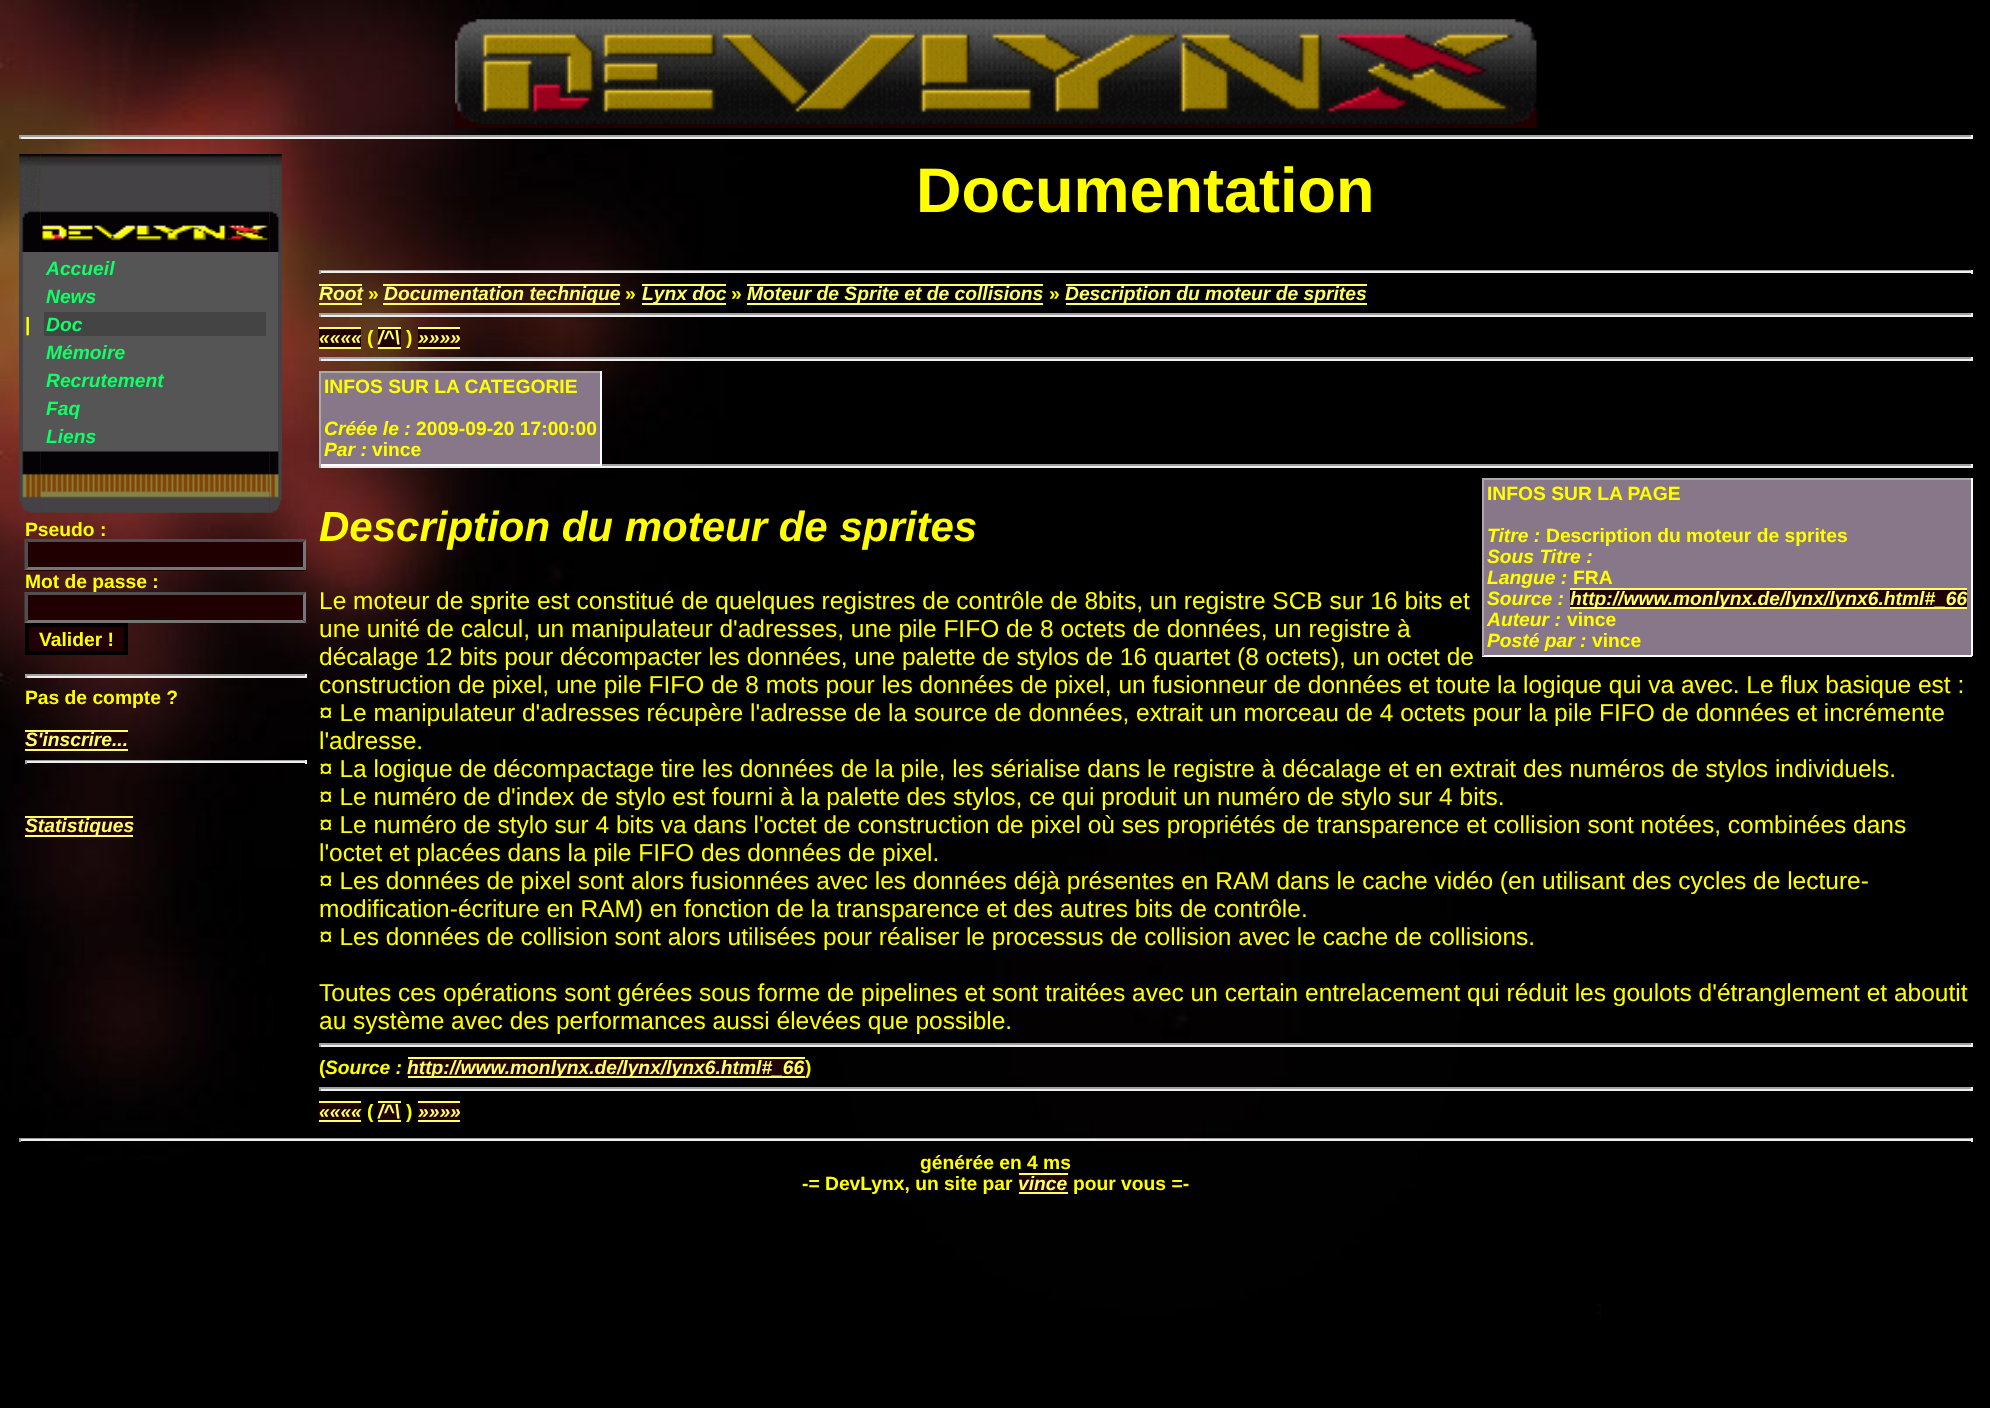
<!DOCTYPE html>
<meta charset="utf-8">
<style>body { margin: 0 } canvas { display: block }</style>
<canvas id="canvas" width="1990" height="1408"></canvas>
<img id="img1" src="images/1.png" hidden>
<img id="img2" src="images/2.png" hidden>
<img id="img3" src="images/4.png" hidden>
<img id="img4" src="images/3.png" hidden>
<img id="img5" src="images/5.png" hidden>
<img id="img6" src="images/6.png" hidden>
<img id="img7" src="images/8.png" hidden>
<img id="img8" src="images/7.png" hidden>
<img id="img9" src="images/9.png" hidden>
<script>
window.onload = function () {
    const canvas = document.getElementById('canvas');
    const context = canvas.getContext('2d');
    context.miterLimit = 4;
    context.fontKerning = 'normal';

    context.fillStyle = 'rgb(0, 0, 0)';
    context.fillRect(0, 0, 1990, 1408);
    context.drawImage(document.getElementById('img1'), 0, 0, 1601, 1315);
    context.fillStyle = 'rgb(32, 0, 0)';
    context.fillRect(455, 107, 1082, 21);
    context.drawImage(document.getElementById('img2'), 455, 19, 1082, 106);
    context.fillStyle = 'rgb(159, 159, 159)';
    context.fillRect(19, 135, 1953, 2);
    context.fillStyle = 'rgb(238, 238, 238)';
    context.fillRect(1971, 135, 2, 4);
    context.fillRect(19, 137, 1953, 2);
    context.fillStyle = 'rgb(159, 159, 159)';
    context.fillRect(19, 135, 2, 4);
    context.drawImage(document.getElementById('img3'), 40, 154, 230, 98);
    context.drawImage(document.getElementById('img4'), 19, 154, 22, 98);
    context.drawImage(document.getElementById('img5'), 40, 224, 230, 28);
    context.drawImage(document.getElementById('img6'), 269, 154, 13, 98);
    context.fillStyle = 'rgb(85, 85, 85)';
    context.fillRect(23, 252, 255, 200);
    context.fillStyle = 'rgb(68, 66, 68)';
    context.fillRect(19, 252, 4, 200);
    context.fillStyle = 'rgb(68, 68, 68)';
    context.fillRect(44, 312, 222, 24);
    context.fillStyle = 'rgb(68, 66, 68)';
    context.fillRect(278, 252, 4, 200);
    context.drawImage(document.getElementById('img7'), 40, 451, 230, 62);
    context.drawImage(document.getElementById('img8'), 19, 451, 22, 62);
    context.drawImage(document.getElementById('img9'), 269, 451, 13, 62);
    context.fillStyle = 'rgb(32, 0, 0)';
    context.fillRect(25, 539, 281, 32);
    context.fillStyle = 'rgb(79, 79, 79)';
    context.beginPath();
    context.moveTo(24, 539);
    context.lineTo(306, 539);
    context.lineTo(303, 542);
    context.lineTo(28, 542);
    context.closePath();
    context.fill();
    context.fillStyle = 'rgb(118, 118, 118)';
    context.beginPath();
    context.moveTo(306, 539);
    context.lineTo(306, 570.5);
    context.lineTo(303, 567);
    context.lineTo(303, 542.5);
    context.closePath();
    context.fill();
    context.beginPath();
    context.moveTo(306, 570);
    context.lineTo(24, 570);
    context.lineTo(28, 567);
    context.lineTo(303, 567);
    context.closePath();
    context.fill();
    context.fillStyle = 'rgb(79, 79, 79)';
    context.beginPath();
    context.moveTo(24.5, 570.5);
    context.lineTo(24.5, 539);
    context.lineTo(28, 542.5);
    context.lineTo(28, 567);
    context.closePath();
    context.fill();
    context.fillStyle = 'rgb(32, 0, 0)';
    context.fillRect(25, 592, 281, 31);
    context.fillStyle = 'rgb(79, 79, 79)';
    context.beginPath();
    context.moveTo(24, 592);
    context.lineTo(306, 592);
    context.lineTo(303, 595);
    context.lineTo(28, 595);
    context.closePath();
    context.fill();
    context.fillStyle = 'rgb(118, 118, 118)';
    context.beginPath();
    context.moveTo(306, 591.5);
    context.lineTo(306, 623);
    context.lineTo(303, 619.5);
    context.lineTo(303, 595);
    context.closePath();
    context.fill();
    context.beginPath();
    context.moveTo(306, 623);
    context.lineTo(24, 623);
    context.lineTo(28, 620);
    context.lineTo(303, 620);
    context.closePath();
    context.fill();
    context.fillStyle = 'rgb(32, 0, 0)';
    context.beginPath();
    context.rect(27, 625, 99, 28);
    context.fill();
    context.strokeStyle = 'rgb(0, 0, 0)';
    context.lineWidth = 4;
    context.stroke();
    context.fillStyle = 'rgb(159, 159, 159)';
    context.fillRect(25, 674, 281, 2);
    context.fillStyle = 'rgb(238, 238, 238)';
    context.fillRect(305, 674, 2, 4);
    context.fillRect(25, 676, 281, 2);
    context.fillStyle = 'rgb(159, 159, 159)';
    context.fillRect(25, 674, 2, 4);
    context.fillStyle = 'rgb(32, 0, 0)';
    context.fillRect(25, 732, 103, 17);
    context.fillStyle = 'rgb(255, 255, 102)';
    context.fillRect(25, 749, 103, 2);
    context.fillRect(25, 730, 103, 2);
    context.fillStyle = 'rgb(159, 159, 159)';
    context.fillRect(25, 760, 281, 1);
    context.fillStyle = 'rgb(238, 238, 238)';
    context.fillRect(305, 760, 2, 4);
    context.fillRect(25, 761, 281, 2);
    context.fillStyle = 'rgb(159, 159, 159)';
    context.fillRect(25, 760, 2, 4);
    context.fillStyle = 'rgb(32, 0, 0)';
    context.fillRect(25, 818, 108, 17);
    context.fillStyle = 'rgb(255, 255, 102)';
    context.fillRect(25, 835, 108, 2);
    context.fillRect(25, 816, 108, 2);
    context.fillStyle = 'rgb(159, 159, 159)';
    context.fillRect(319, 270, 1653, 1);
    context.fillStyle = 'rgb(238, 238, 238)';
    context.fillRect(1971, 270, 2, 4);
    context.fillRect(319, 271, 1653, 2);
    context.fillStyle = 'rgb(159, 159, 159)';
    context.fillRect(319, 270, 2, 4);
    context.fillStyle = 'rgb(255, 255, 102)';
    context.fillRect(319, 303, 43, 2);
    context.fillRect(319, 284, 43, 2);
    context.fillRect(383, 303, 237, 2);
    context.fillRect(383, 284, 237, 2);
    context.fillRect(642, 303, 84, 2);
    context.fillRect(642, 284, 84, 2);
    context.fillRect(747, 303, 296, 2);
    context.fillRect(747, 284, 296, 2);
    context.fillRect(1066, 303, 301, 2);
    context.fillRect(1066, 284, 301, 2);
    context.fillStyle = 'rgb(159, 159, 159)';
    context.fillRect(319, 313, 1653, 2);
    context.fillStyle = 'rgb(238, 238, 238)';
    context.fillRect(1971, 313, 2, 4);
    context.fillRect(319, 315, 1653, 2);
    context.fillStyle = 'rgb(159, 159, 159)';
    context.fillRect(319, 313, 2, 4);
    context.fillStyle = 'rgb(32, 0, 0)';
    context.fillRect(319, 329, 42, 18);
    context.fillStyle = 'rgb(255, 255, 102)';
    context.fillRect(319, 347, 42, 2);
    context.fillRect(319, 327, 42, 2);
    context.fillStyle = 'rgb(32, 0, 0)';
    context.fillRect(378, 329, 23, 18);
    context.fillStyle = 'rgb(255, 255, 102)';
    context.fillRect(378, 347, 23, 2);
    context.fillRect(378, 327, 23, 2);
    context.fillStyle = 'rgb(32, 0, 0)';
    context.fillRect(418, 329, 42, 18);
    context.fillStyle = 'rgb(255, 255, 102)';
    context.fillRect(418, 347, 42, 2);
    context.fillRect(418, 327, 42, 2);
    context.fillStyle = 'rgb(159, 159, 159)';
    context.fillRect(319, 357, 1653, 2);
    context.fillStyle = 'rgb(238, 238, 238)';
    context.fillRect(1971, 357, 2, 4);
    context.fillRect(319, 359, 1653, 2);
    context.fillStyle = 'rgb(159, 159, 159)';
    context.fillRect(319, 357, 2, 4);
    context.fillStyle = 'rgb(136, 119, 136)';
    context.fillRect(321, 373, 279, 91);
    context.fillStyle = 'rgb(170, 170, 170)';
    context.fillRect(319, 371, 283, 2);
    context.fillStyle = 'rgb(255, 255, 255)';
    context.fillRect(600, 371, 2, 95);
    context.fillStyle = 'rgb(159, 159, 159)';
    context.fillRect(602, 464, 1370, 2);
    context.fillStyle = 'rgb(238, 238, 238)';
    context.fillRect(1971, 464, 2, 4);
    context.fillRect(319, 466, 1653, 2);
    context.fillStyle = 'rgb(159, 159, 159)';
    context.fillRect(319, 464, 2, 4);
    context.fillStyle = 'rgb(255, 255, 255)';
    context.fillRect(319, 464, 283, 2);
    context.fillStyle = 'rgb(170, 170, 170)';
    context.fillRect(319, 371, 2, 95);
    context.fillStyle = 'rgb(136, 119, 136)';
    context.fillRect(1484, 480, 487, 175);
    context.fillStyle = 'rgb(170, 170, 170)';
    context.fillRect(1482, 478, 490, 2);
    context.fillStyle = 'rgb(255, 255, 255)';
    context.fillRect(1971, 478, 2, 178);
    context.fillRect(1482, 655, 490, 2);
    context.fillStyle = 'rgb(170, 170, 170)';
    context.fillRect(1482, 478, 2, 178);
    context.fillStyle = 'rgb(32, 0, 0)';
    context.fillRect(1570, 590, 397, 17);
    context.fillStyle = 'rgb(255, 255, 102)';
    context.fillRect(1570, 607, 397, 2);
    context.fillRect(1570, 588, 397, 2);
    context.fillStyle = 'rgb(159, 159, 159)';
    context.fillRect(319, 1043, 1653, 2);
    context.fillStyle = 'rgb(238, 238, 238)';
    context.fillRect(1971, 1043, 2, 4);
    context.fillRect(319, 1045, 1653, 2);
    context.fillStyle = 'rgb(159, 159, 159)';
    context.fillRect(319, 1043, 2, 4);
    context.fillStyle = 'rgb(32, 0, 0)';
    context.fillRect(408, 1059, 397, 17);
    context.fillStyle = 'rgb(255, 255, 102)';
    context.fillRect(408, 1076, 397, 2);
    context.fillRect(408, 1057, 397, 2);
    context.fillStyle = 'rgb(159, 159, 159)';
    context.fillRect(319, 1087, 1653, 2);
    context.fillStyle = 'rgb(238, 238, 238)';
    context.fillRect(1971, 1087, 2, 4);
    context.fillRect(319, 1089, 1653, 2);
    context.fillStyle = 'rgb(159, 159, 159)';
    context.fillRect(319, 1087, 2, 4);
    context.fillStyle = 'rgb(32, 0, 0)';
    context.fillRect(319, 1103, 42, 17);
    context.fillStyle = 'rgb(255, 255, 102)';
    context.fillRect(319, 1120, 42, 2);
    context.fillRect(319, 1101, 42, 2);
    context.fillStyle = 'rgb(32, 0, 0)';
    context.fillRect(378, 1103, 23, 17);
    context.fillStyle = 'rgb(255, 255, 102)';
    context.fillRect(378, 1120, 23, 2);
    context.fillRect(378, 1101, 23, 2);
    context.fillStyle = 'rgb(32, 0, 0)';
    context.fillRect(418, 1103, 42, 17);
    context.fillStyle = 'rgb(255, 255, 102)';
    context.fillRect(418, 1120, 42, 2);
    context.fillRect(418, 1101, 42, 2);
    context.fillStyle = 'rgb(159, 159, 159)';
    context.fillRect(19, 1138, 1953, 1);
    context.fillStyle = 'rgb(238, 238, 238)';
    context.fillRect(1971, 1138, 2, 4);
    context.fillRect(19, 1139, 1953, 2);
    context.fillStyle = 'rgb(159, 159, 159)';
    context.fillRect(19, 1138, 2, 4);
    context.fillStyle = 'rgb(32, 0, 0)';
    context.fillRect(1019, 1175, 49, 17);
    context.fillStyle = 'rgb(255, 255, 102)';
    context.fillRect(1019, 1192, 49, 2);
    context.font = 'bold 19.25px Liberation Sans';
    context.fillStyle = 'rgb(255, 255, 0)';
    context.fillText('|', 25, 331);
    context.font = 'italic bold 19.25px Liberation Sans';
    context.fillStyle = 'rgb(15, 255, 102)';
    context.fillText('Accueil', 46, 275);
    context.fillText('News', 46, 303);
    context.fillText('Doc', 46, 331);
    context.fillText('Mémoire', 46, 359);
    context.fillText('Recrutement', 46, 387);
    context.fillText('Faq', 46, 415);
    context.fillText('Liens', 46, 443);
    context.font = 'bold 19.25px Liberation Sans';
    context.fillStyle = 'rgb(255, 255, 0)';
    context.fillText('Pseudo :', 25, 536);
    context.fillText('Mot de passe :', 25, 588);
    context.fillStyle = 'rgb(79, 79, 79)';
    context.beginPath();
    context.moveTo(24.5, 623);
    context.lineTo(24.5, 591.5);
    context.lineTo(28, 595);
    context.lineTo(28, 619.5);
    context.closePath();
    context.fill();
    context.fillStyle = 'rgb(255, 255, 0)';
    context.fillText('Valider !', 39, 646);
    context.fillText('Pas de compte ?', 25, 704);
    context.font = 'italic bold 19.25px Liberation Sans';
    context.fillStyle = 'rgb(255, 255, 102)';
    context.fillText('S\'inscrire...', 25, 746);
    context.fillText('Statistiques', 25, 832);
    context.font = 'bold 63px Liberation Sans';
    context.fillStyle = 'rgb(255, 255, 0)';
    context.fillText('Documentation', 916, 212);
    context.font = 'italic bold 19.25px Liberation Sans';
    context.fillStyle = 'rgb(255, 255, 102)';
    context.fillText('Root', 319, 300);
    context.font = 'bold 19.25px Liberation Sans';
    context.fillStyle = 'rgb(255, 255, 0)';
    context.fillText('»', 368, 300);
    context.font = 'italic bold 19.25px Liberation Sans';
    context.fillStyle = 'rgb(255, 255, 102)';
    context.fillText('Documentation technique', 384, 300);
    context.font = 'bold 19.25px Liberation Sans';
    context.fillStyle = 'rgb(255, 255, 0)';
    context.fillText('»', 625, 300);
    context.font = 'italic bold 19.25px Liberation Sans';
    context.fillStyle = 'rgb(255, 255, 102)';
    context.fillText('Lynx doc', 642, 300);
    context.font = 'bold 19.25px Liberation Sans';
    context.fillStyle = 'rgb(255, 255, 0)';
    context.fillText('»', 731, 300);
    context.font = 'italic bold 19.25px Liberation Sans';
    context.fillStyle = 'rgb(255, 255, 102)';
    context.fillText('Moteur de Sprite et de collisions', 747, 300);
    context.font = 'bold 19.25px Liberation Sans';
    context.fillStyle = 'rgb(255, 255, 0)';
    context.fillText('»', 1049, 300);
    context.font = 'italic bold 19.25px Liberation Sans';
    context.fillStyle = 'rgb(255, 255, 102)';
    context.fillText('Description du moteur de sprites', 1065, 300);
    context.fillText('««««', 319, 344);
    context.font = 'bold 19.25px Liberation Sans';
    context.fillStyle = 'rgb(255, 255, 0)';
    context.fillText('(', 367, 344);
    context.font = 'italic bold 19.25px Liberation Sans';
    context.fillStyle = 'rgb(255, 255, 102)';
    context.fillText('/^\\', 378, 344);
    context.font = 'bold 19.25px Liberation Sans';
    context.fillStyle = 'rgb(255, 255, 0)';
    context.fillText(')', 406, 344);
    context.font = 'italic bold 19.25px Liberation Sans';
    context.fillStyle = 'rgb(255, 255, 102)';
    context.fillText('»»»»', 418, 344);
    context.font = 'bold 19.25px Liberation Sans';
    context.fillStyle = 'rgb(255, 255, 0)';
    context.fillText('INFOS SUR LA CATEGORIE', 324, 393);
    context.font = 'italic bold 19.25px Liberation Sans';
    context.fillText('Créée le :', 324, 435);
    context.font = 'bold 19.25px Liberation Sans';
    context.fillText('2009-09-20 17:00:00', 416, 435);
    context.font = 'italic bold 19.25px Liberation Sans';
    context.fillText('Par :', 324, 456);
    context.font = 'bold 19.25px Liberation Sans';
    context.fillText('vince', 372, 456);
    context.font = 'italic bold 42px Liberation Sans';
    context.fillText('Description du moteur de sprites', 319, 541);
    context.font = 'bold 19.25px Liberation Sans';
    context.fillText('INFOS SUR LA PAGE', 1487, 500);
    context.font = 'italic bold 19.25px Liberation Sans';
    context.fillText('Titre :', 1487, 542);
    context.font = 'bold 19.25px Liberation Sans';
    context.fillText('Description du moteur de sprites', 1546, 542);
    context.font = 'italic bold 19.25px Liberation Sans';
    context.fillText('Sous Titre :', 1487, 563);
    context.fillText('Langue :', 1487, 584);
    context.font = 'bold 19.25px Liberation Sans';
    context.fillText('FRA', 1573, 584);
    context.font = 'italic bold 19.25px Liberation Sans';
    context.fillText('Source :', 1487, 605);
    context.fillStyle = 'rgb(255, 255, 102)';
    context.fillText('http://www.monlynx.de/lynx/lynx6.html#_66', 1570, 605);
    context.fillStyle = 'rgb(255, 255, 0)';
    context.fillText('Auteur :', 1487, 626);
    context.font = 'bold 19.25px Liberation Sans';
    context.fillText('vince', 1567, 626);
    context.font = 'italic bold 19.25px Liberation Sans';
    context.fillText('Posté par :', 1487, 647);
    context.font = 'bold 19.25px Liberation Sans';
    context.fillText('vince', 1592, 647);
    context.font = '24.5px Liberation Sans';
    context.fillText('Le moteur de sprite est constitué de quelques registres de contrôle de 8bits, un registre SCB sur 16 bits et', 319, 609);
    context.fillText('une unité de calcul, un manipulateur d\'adresses, une pile FIFO de 8 octets de données, un registre à', 319, 637);
    context.fillText('décalage 12 bits pour décompacter les données, une palette de stylos de 16 quartet (8 octets), un octet de', 319, 665);
    context.fillText('construction de pixel, une pile FIFO de 8 mots pour les données de pixel, un fusionneur de données et toute la logique qui va avec. Le flux basique est :', 319, 693);
    context.fillText('¤ Le manipulateur d\'adresses récupère l\'adresse de la source de données, extrait un morceau de 4 octets pour la pile FIFO de données et incrémente', 319, 721);
    context.fillText('l\'adresse.', 319, 749);
    context.fillText('¤ La logique de décompactage tire les données de la pile, les sérialise dans le registre à décalage et en extrait des numéros de stylos individuels.', 319, 777);
    context.fillText('¤ Le numéro de d\'index de stylo est fourni à la palette des stylos, ce qui produit un numéro de stylo sur 4 bits.', 319, 805);
    context.fillText('¤ Le numéro de stylo sur 4 bits va dans l\'octet de construction de pixel où ses propriétés de transparence et collision sont notées, combinées dans', 319, 833);
    context.fillText('l\'octet et placées dans la pile FIFO des données de pixel.', 319, 861);
    context.fillText('¤ Les données de pixel sont alors fusionnées avec les données déjà présentes en RAM dans le cache vidéo (en utilisant des cycles de lecture-', 319, 889);
    context.fillText('modification-écriture en RAM) en fonction de la transparence et des autres bits de contrôle.', 319, 917);
    context.fillText('¤ Les données de collision sont alors utilisées pour réaliser le processus de collision avec le cache de collisions.', 319, 945);
    context.fillText('Toutes ces opérations sont gérées sous forme de pipelines et sont traitées avec un certain entrelacement qui réduit les goulots d\'étranglement et aboutit', 319, 1001);
    context.fillText('au système avec des performances aussi élevées que possible.', 319, 1029);
    context.font = 'bold 19.25px Liberation Sans';
    context.fillText('(', 319, 1074);
    context.font = 'italic bold 19.25px Liberation Sans';
    context.fillText('Source :', 325, 1074);
    context.fillStyle = 'rgb(255, 255, 102)';
    context.fillText('http://www.monlynx.de/lynx/lynx6.html#_66', 407, 1074);
    context.font = 'bold 19.25px Liberation Sans';
    context.fillStyle = 'rgb(255, 255, 0)';
    context.fillText(')', 805, 1074);
    context.font = 'italic bold 19.25px Liberation Sans';
    context.fillStyle = 'rgb(255, 255, 102)';
    context.fillText('««««', 319, 1118);
    context.font = 'bold 19.25px Liberation Sans';
    context.fillStyle = 'rgb(255, 255, 0)';
    context.fillText('(', 367, 1118);
    context.font = 'italic bold 19.25px Liberation Sans';
    context.fillStyle = 'rgb(255, 255, 102)';
    context.fillText('/^\\', 378, 1118);
    context.font = 'bold 19.25px Liberation Sans';
    context.fillStyle = 'rgb(255, 255, 0)';
    context.fillText(')', 406, 1118);
    context.font = 'italic bold 19.25px Liberation Sans';
    context.fillStyle = 'rgb(255, 255, 102)';
    context.fillText('»»»»', 418, 1118);
    context.font = 'bold 19.25px Liberation Sans';
    context.fillStyle = 'rgb(255, 255, 0)';
    context.fillText('générée en 4 ms', 920, 1169);
    context.fillText('-= DevLynx, un site par', 802, 1190);
    context.font = 'italic bold 19.25px Liberation Sans';
    context.fillStyle = 'rgb(255, 255, 102)';
    context.fillText('vince', 1018, 1190);
    context.fillRect(1019, 1173, 49, 2);
    context.font = 'bold 19.25px Liberation Sans';
    context.fillStyle = 'rgb(255, 255, 0)';
    context.fillText('pour vous =-', 1073, 1190);
};
</script>
